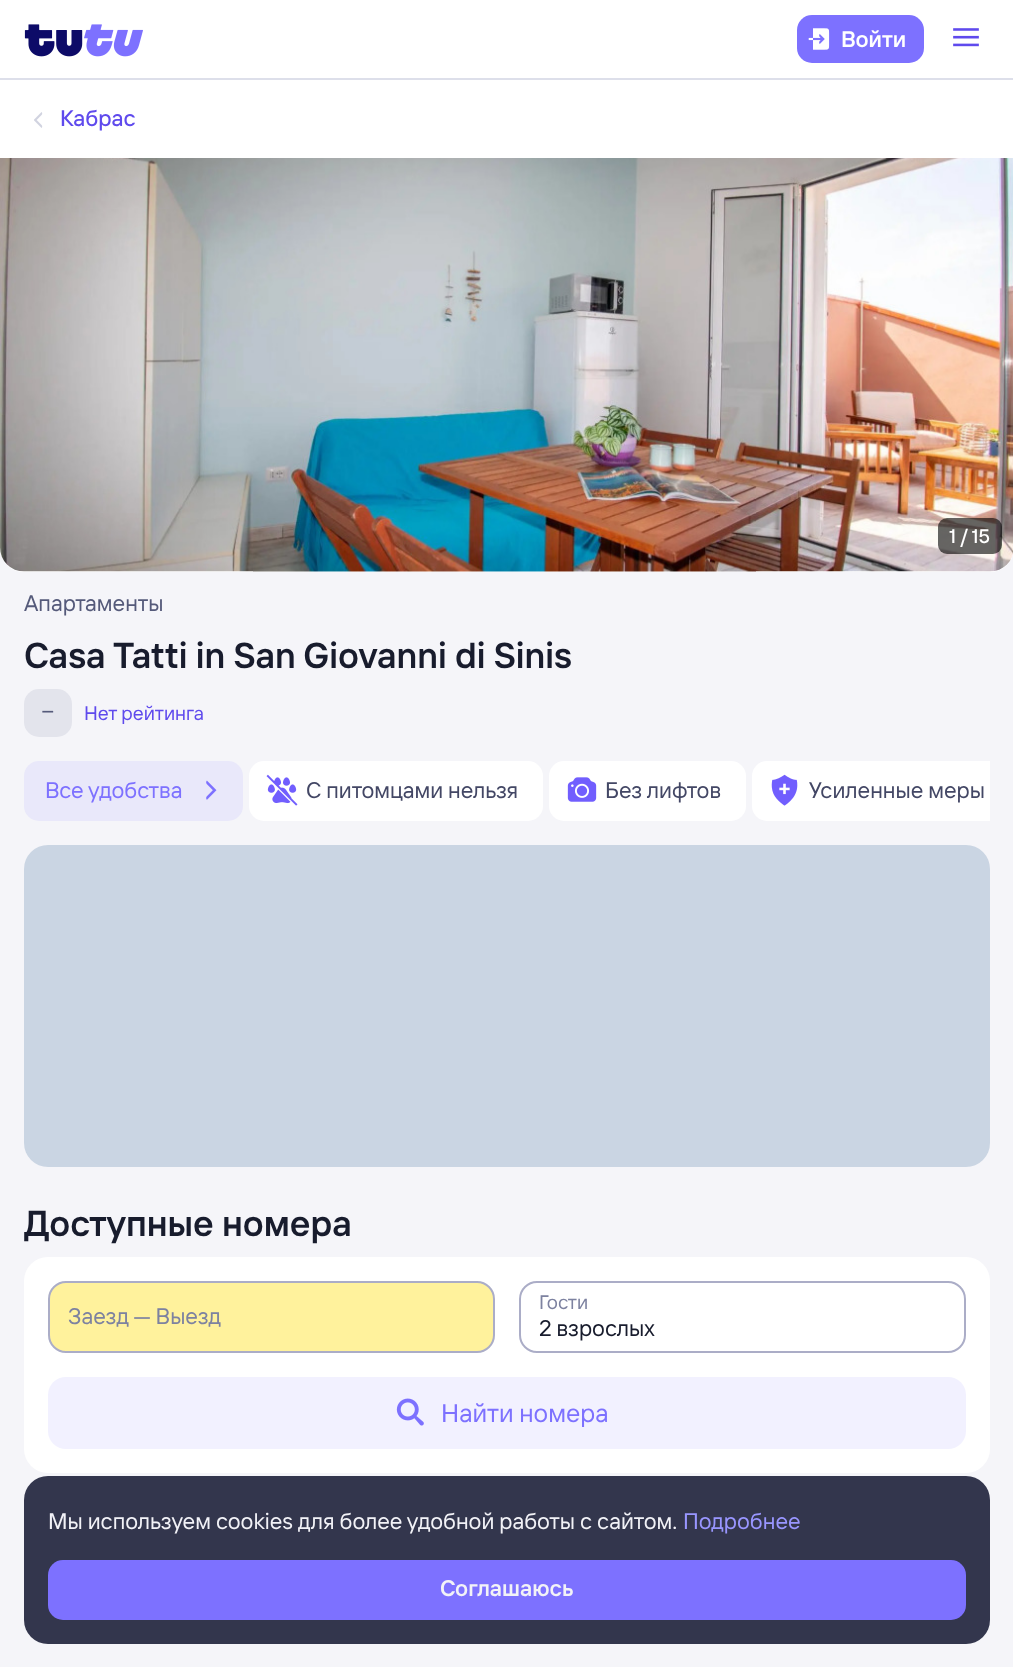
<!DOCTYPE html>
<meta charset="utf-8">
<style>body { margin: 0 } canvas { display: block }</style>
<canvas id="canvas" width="1013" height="1667"></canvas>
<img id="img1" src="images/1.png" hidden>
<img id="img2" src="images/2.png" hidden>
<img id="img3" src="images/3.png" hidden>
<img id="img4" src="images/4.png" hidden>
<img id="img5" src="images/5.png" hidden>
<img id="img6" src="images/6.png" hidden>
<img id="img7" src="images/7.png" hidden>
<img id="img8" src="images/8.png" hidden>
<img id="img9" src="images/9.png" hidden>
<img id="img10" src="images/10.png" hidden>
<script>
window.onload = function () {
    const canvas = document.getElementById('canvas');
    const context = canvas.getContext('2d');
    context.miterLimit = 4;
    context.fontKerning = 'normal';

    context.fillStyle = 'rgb(245, 245, 249)';
    context.fillRect(0, 0, 1013, 1667);
    context.fillStyle = 'rgb(255, 255, 255)';
    context.fillRect(0, 0, 1013, 78);
    context.fillStyle = 'rgb(221, 223, 234)';
    context.fillRect(0, 78, 1013, 2);
    context.drawImage(document.getElementById('img1'), 24, 24, 119, 33);
    context.fillStyle = 'rgb(125, 113, 255)';
    context.beginPath();
    context.roundRect(797, 15, 127, 48, 15);
    context.fill();
    context.drawImage(document.getElementById('img2'), 808, 28, 22, 22);
    context.drawImage(document.getElementById('img3'), 953, 28, 26, 19);
    context.fillStyle = 'rgb(255, 255, 255)';
    context.fillRect(0, 80, 1013, 78);
    context.drawImage(document.getElementById('img4'), 34, 112, 9, 16);
    context.beginPath();
    context.moveTo(0, 158);
    context.lineTo(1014, 158);
    context.lineTo(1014, 548);
    context.bezierCurveTo(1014, 561.5, 1003.5, 572, 990, 572);
    context.lineTo(24, 572);
    context.bezierCurveTo(10.5, 572, 0, 561.5, 0, 548);
    context.closePath();
    context.fill();
    context.drawImage(document.getElementById('img5'), 0, 158, 1013, 414);
    context.fillStyle = 'rgba(0, 0, 0, 0.6)';
    context.beginPath();
    context.roundRect(938, 518, 64, 36, 9);
    context.fill();
    context.fillStyle = 'rgb(227, 228, 236)';
    context.beginPath();
    context.roundRect(24, 689, 48, 48, 15);
    context.fill();
    context.fillStyle = 'rgb(233, 232, 250)';
    context.beginPath();
    context.roundRect(24, 761, 219, 60, 15);
    context.fill();
    context.drawImage(document.getElementById('img6'), 206, 780, 11, 20);
    context.fillStyle = 'rgb(255, 255, 255)';
    context.beginPath();
    context.roundRect(249, 761, 294, 60, 15);
    context.fill();
    context.drawImage(document.getElementById('img7'), 266, 774, 32, 32);
    context.beginPath();
    context.roundRect(549, 761, 197, 60, 15);
    context.fill();
    context.drawImage(document.getElementById('img8'), 567, 777, 30, 25);
    context.beginPath();
    context.roundRect(752, 761, 238, 60, [15, 0, 0, 15]);
    context.fill();
    context.drawImage(document.getElementById('img9'), 771, 774, 27, 32);
    context.fillStyle = 'rgb(202, 213, 227)';
    context.beginPath();
    context.roundRect(24, 845, 966, 322, 24);
    context.fill();
    context.fillStyle = 'rgb(255, 255, 255)';
    context.beginPath();
    context.roundRect(24, 1257, 966, 216, 24);
    context.fill();
    context.fillStyle = 'rgb(255, 242, 156)';
    context.beginPath();
    context.roundRect(49, 1282, 445, 70, 17);
    context.fill();
    context.strokeStyle = 'rgb(171, 173, 199)';
    context.lineWidth = 2;
    context.stroke();
    context.beginPath();
    context.roundRect(520, 1282, 445, 70, 17);
    context.stroke();
    context.fillStyle = 'rgb(242, 241, 255)';
    context.beginPath();
    context.roundRect(48, 1377, 918, 72, 18);
    context.fill();
    context.drawImage(document.getElementById('img10'), 396, 1398, 28, 28);
    context.fillStyle = 'rgb(51, 54, 77)';
    context.beginPath();
    context.roundRect(24, 1476, 966, 168, 24);
    context.fill();
    context.fillStyle = 'rgb(125, 113, 255)';
    context.beginPath();
    context.roundRect(48, 1560, 918, 60, 15);
    context.fill();
    context.font = '600 22.5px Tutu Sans';
    context.fillStyle = 'rgb(255, 255, 255)';
    context.fillText('Войти', 841, 47);
    context.font = '500 22.5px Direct';
    context.fillStyle = 'rgb(95, 74, 237)';
    context.fillText('Кабрас', 60, 126);
    context.font = '500 19.5px Direct';
    context.fillStyle = 'rgb(255, 255, 255)';
    context.fillText('1 / 15', 949, 543);
    context.font = '22.5px Tutu Sans';
    context.fillStyle = 'rgb(85, 90, 122)';
    context.fillText('Апартаменты', 24, 611);
    context.font = '600 36px Tutu Sans';
    context.fillStyle = 'rgb(24, 28, 45)';
    context.fillText('Casa Tatti in San Giovanni di Sinis', 24, 668);
    context.font = '22.5px Tutu Sans';
    context.fillStyle = 'rgb(85, 90, 122)';
    context.fillText('−', 41, 719);
    context.font = '19.5px Tutu Sans';
    context.fillStyle = 'rgb(95, 74, 237)';
    context.fillText('Нет рейтинга', 84, 720);
    context.font = '22.5px Tutu Sans';
    context.fillStyle = 'rgb(125, 113, 255)';
    context.fillText('Все удобства', 45, 798);
    context.fillStyle = 'rgb(67, 71, 101)';
    context.fillText('С питомцами нельзя', 306, 798);
    context.fillText('Без лифтов', 605, 798);
    context.fillText('Усиленные меры', 809, 798);
    context.font = '600 36px Tutu Sans';
    context.fillStyle = 'rgb(24, 28, 45)';
    context.fillText('Доступные номера', 24, 1236);
    context.font = '22.5px Tutu Sans';
    context.fillStyle = 'rgb(125, 130, 160)';
    context.fillText('Заезд — Выезд', 68, 1324);
    context.font = '19.5px Tutu Sans';
    context.fillText('Гости', 539, 1309);
    context.font = '22.5px Tutu Sans';
    context.fillStyle = 'rgb(24, 28, 45)';
    context.fillText('2 взрослых', 539, 1336);
    context.font = '25.5px Tutu Sans';
    context.fillStyle = 'rgb(125, 113, 255)';
    context.fillText('Найти номера', 441, 1422);
    context.font = '22.5px Tutu Sans';
    context.fillStyle = 'rgb(242, 242, 247)';
    context.fillText('Мы используем cookies для более удобной работы с сайтом.', 48, 1529);
    context.fillStyle = 'rgb(153, 150, 255)';
    context.fillText('Подробнее', 683, 1529);
    context.font = '600 22.5px Tutu Sans';
    context.fillStyle = 'rgb(242, 242, 247)';
    context.fillText('Соглашаюсь', 440, 1596);
};
</script>
